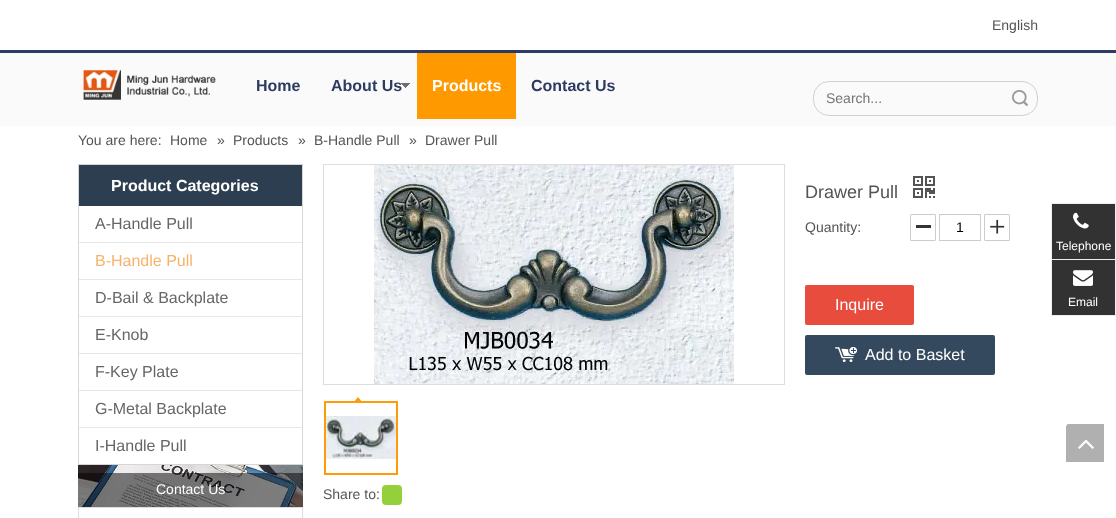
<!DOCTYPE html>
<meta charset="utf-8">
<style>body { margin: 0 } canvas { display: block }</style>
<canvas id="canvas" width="1116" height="518"></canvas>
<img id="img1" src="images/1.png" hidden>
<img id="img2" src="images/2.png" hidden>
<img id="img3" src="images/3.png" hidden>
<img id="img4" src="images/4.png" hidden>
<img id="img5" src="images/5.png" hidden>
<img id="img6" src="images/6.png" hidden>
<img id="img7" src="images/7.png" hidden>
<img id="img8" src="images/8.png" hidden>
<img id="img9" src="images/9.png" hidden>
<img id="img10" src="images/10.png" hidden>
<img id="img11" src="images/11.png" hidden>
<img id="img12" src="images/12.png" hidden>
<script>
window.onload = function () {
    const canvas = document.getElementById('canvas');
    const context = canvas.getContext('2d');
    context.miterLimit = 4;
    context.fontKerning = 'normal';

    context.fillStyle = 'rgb(255, 255, 255)';
    context.fillRect(0, 0, 1116, 518);
    context.fillStyle = 'rgb(250, 250, 250)';
    context.fillRect(0, 53, 1116, 73);
    context.fillStyle = 'rgb(43, 59, 98)';
    context.fillRect(0, 50, 1116, 3);
    context.drawImage(document.getElementById('img1'), 83, 70, 133, 30);
    context.drawImage(document.getElementById('img2'), 401, 83, 9, 5);
    context.fillStyle = 'rgb(255, 153, 0)';
    context.fillRect(417, 53, 99, 66);
    context.beginPath();
    context.roundRect(813.5, 81.5, 224, 34, 15.5);
    context.strokeStyle = 'rgb(209, 209, 209)';
    context.stroke();
    context.drawImage(document.getElementById('img3'), 1012, 90, 16, 16);
    context.strokeStyle = 'rgb(214, 214, 214)';
    context.strokeRect(78.5, 164.5, 224, 300);
    context.fillStyle = 'rgb(44, 62, 80)';
    context.fillRect(79, 165, 223, 41);
    context.fillStyle = 'rgb(231, 231, 231)';
    context.fillRect(79, 242, 223, 1);
    context.fillRect(79, 279, 223, 1);
    context.fillRect(79, 316, 223, 1);
    context.fillRect(79, 353, 223, 1);
    context.fillRect(79, 390, 223, 1);
    context.fillRect(79, 427, 223, 1);
    context.drawImage(document.getElementById('img4'), 78, 465, 225, 42);
    context.fillStyle = 'rgba(0, 0, 0, 0.5)';
    context.fillRect(78, 473, 225, 34);
    context.strokeStyle = 'rgb(221, 221, 221)';
    context.strokeRect(78.5, 507.5, 224, 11);
    context.drawImage(document.getElementById('img5'), 913, 176, 22, 22);
    context.fillStyle = 'rgb(51, 51, 51)';
    context.fillRect(916, 225, 15, 3);
    context.beginPath();
    context.roundRect(910.5, 214.5, 25, 26, 0.5);
    context.strokeStyle = 'rgb(204, 204, 204)';
    context.stroke();
    context.strokeRect(939.5, 214.5, 41, 26);
    context.drawImage(document.getElementById('img6'), 990, 219, 15, 15);
    context.beginPath();
    context.roundRect(984.5, 214.5, 25, 26, 0.5);
    context.stroke();
    context.fillStyle = 'rgb(231, 76, 60)';
    context.beginPath();
    context.roundRect(805, 285, 109, 40, 2);
    context.fill();
    context.fillStyle = 'rgb(52, 73, 94)';
    context.beginPath();
    context.roundRect(805, 335, 190, 40, 2);
    context.fill();
    context.drawImage(document.getElementById('img7'), 835, 347, 22, 15);
    context.strokeStyle = 'rgb(221, 221, 221)';
    context.strokeRect(323.5, 164.5, 461, 220);
    context.drawImage(document.getElementById('img8'), 374, 165, 360, 219);
    context.strokeStyle = 'rgb(254, 155, 10)';
    context.lineWidth = 2;
    context.strokeRect(325, 402, 72, 72);
    context.fillStyle = 'rgb(254, 155, 10)';
    context.beginPath();
    context.moveTo(363, 403);
    context.lineTo(353, 403);
    context.lineTo(358, 397);
    context.closePath();
    context.fill();
    context.drawImage(document.getElementById('img9'), 326, 416, 70, 43);
    context.fillStyle = 'rgb(149, 208, 58)';
    context.beginPath();
    context.roundRect(382, 485, 20, 20, 4);
    context.fill();
    context.fillStyle = 'rgb(50, 50, 50)';
    context.fillRect(1052, 204, 63, 55);
    context.fillStyle = 'rgb(238, 238, 238)';
    context.fillRect(1051, 203, 65, 1);
    context.fillRect(1115, 203, 1, 56);
    context.fillRect(1051, 203, 1, 56);
    context.drawImage(document.getElementById('img10'), 1073, 212, 16, 17);
    context.fillStyle = 'rgb(50, 50, 50)';
    context.beginPath();
    context.rect(1051.5, 259.5, 64, 56);
    context.fill();
    context.strokeStyle = 'rgb(238, 238, 238)';
    context.lineWidth = 1;
    context.stroke();
    context.drawImage(document.getElementById('img11'), 1073, 270, 20, 16);
    context.drawImage(document.getElementById('img12'), 1066, 424, 38, 38);
    context.font = '14px Liberation Sans';
    context.fillStyle = 'rgb(84, 84, 84)';
    context.fillText('English', 992, 30);
    context.font = 'bold 16px Liberation Sans';
    context.fillStyle = 'rgb(43, 59, 98)';
    context.fillText('Home', 256, 91);
    context.fillText('About Us', 331, 91);
    context.fillStyle = 'rgb(255, 255, 255)';
    context.fillText('Products', 432, 91);
    context.fillStyle = 'rgb(43, 59, 98)';
    context.fillText('Contact Us', 531, 91);
    context.font = '14px Liberation Sans';
    context.fillStyle = 'rgb(117, 117, 117)';
    context.fillText('Search...', 826, 103);
    context.fillStyle = 'rgb(84, 84, 84)';
    context.fillText('You are here:', 78, 145);
    context.fillText('Home', 170, 145);
    context.fillText('»', 217, 145);
    context.fillText('Products', 233, 145);
    context.fillText('»', 298, 145);
    context.fillText('B-Handle Pull', 314, 145);
    context.fillText('»', 409, 145);
    context.fillText('Drawer Pull', 425, 145);
    context.font = 'bold 16px Liberation Sans';
    context.fillStyle = 'rgb(255, 255, 255)';
    context.fillText('Product Categories', 111, 191);
    context.font = '16px Liberation Sans';
    context.fillStyle = 'rgb(102, 102, 102)';
    context.fillText('A-Handle Pull', 95, 229);
    context.fillStyle = 'rgb(246, 178, 107)';
    context.fillText('B-Handle Pull', 95, 266);
    context.fillStyle = 'rgb(102, 102, 102)';
    context.fillText('D-Bail & Backplate', 95, 303);
    context.fillText('E-Knob', 95, 340);
    context.fillText('F-Key Plate', 95, 377);
    context.fillText('G-Metal Backplate', 95, 414);
    context.fillText('I-Handle Pull', 95, 451);
    context.font = '14px Liberation Sans';
    context.fillStyle = 'rgb(255, 255, 255)';
    context.fillText('Contact Us', 156, 494);
    context.font = '18px Liberation Sans';
    context.fillStyle = 'rgb(84, 84, 84)';
    context.fillText('Drawer Pull', 805, 198);
    context.font = '14px Liberation Sans';
    context.fillText('Quantity:', 805, 232);
    context.fillStyle = 'rgb(0, 0, 0)';
    context.fillText('1', 956, 232);
    context.font = '16px Liberation Sans';
    context.fillStyle = 'rgb(255, 255, 255)';
    context.fillText('Inquire', 835, 310);
    context.fillText('Add to Basket', 865, 360);
    context.font = '14px Liberation Sans';
    context.fillStyle = 'rgb(84, 84, 84)';
    context.fillText('Share to:', 323, 499);
    context.font = '12px Liberation Sans';
    context.fillStyle = 'rgb(255, 255, 255)';
    context.fillText('Telephone', 1056, 250);
    context.fillText('Email', 1068, 306);
};
</script>
